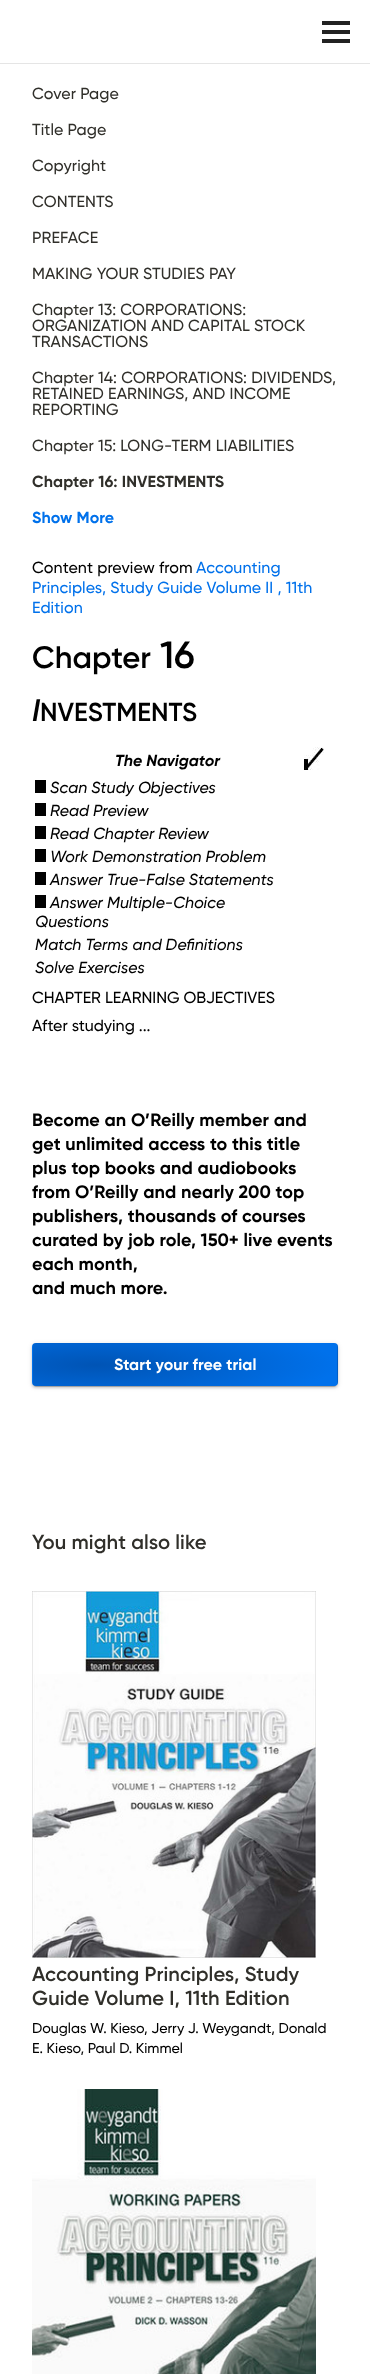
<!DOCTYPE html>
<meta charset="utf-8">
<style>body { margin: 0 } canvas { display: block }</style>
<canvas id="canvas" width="370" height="2374"></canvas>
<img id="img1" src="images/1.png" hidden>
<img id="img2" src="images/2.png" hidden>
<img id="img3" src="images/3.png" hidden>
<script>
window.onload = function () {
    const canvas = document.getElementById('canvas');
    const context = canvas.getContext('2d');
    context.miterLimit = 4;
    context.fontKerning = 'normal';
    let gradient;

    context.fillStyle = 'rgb(255, 255, 255)';
    context.fillRect(0, 0, 370, 2374);
    context.fillStyle = 'rgba(0, 0, 0, 0.1)';
    context.fillRect(0, 63, 370, 1);
    context.fillStyle = 'rgb(34, 34, 34)';
    context.fillRect(322, 30, 28, 4);
    context.fillRect(322, 21, 28, 4);
    context.fillRect(322, 39, 28, 4);
    context.drawImage(document.getElementById('img1'), 304, 747, 20, 23);
    context.fillStyle = 'rgb(1, 1, 1)';
    context.fillRect(35, 780, 11, 13);
    context.fillRect(35, 803, 11, 13);
    context.fillRect(35, 826, 11, 13);
    context.fillRect(35, 849, 11, 13);
    context.fillRect(35, 872, 11, 13);
    context.fillRect(35, 895, 11, 13);
    context.fillStyle = 'rgba(0, 0, 0, 0.12)';
    context.filter = 'blur(2.5px)';
    context.beginPath();
    context.roundRect(32, 1344, 306, 43, 4);
    context.fill();
    context.filter = 'none';
    context.fillStyle = 'rgba(0, 0, 0, 0.14)';
    context.filter = 'blur(1px)';
    context.beginPath();
    context.roundRect(32, 1345, 306, 43, 4);
    context.fill();
    context.filter = 'none';
    context.fillStyle = 'rgba(0, 0, 0, 0.2)';
    context.filter = 'blur(0.5px)';
    context.beginPath();
    context.roundRect(34, 1348, 302, 39, 2);
    context.fill();
    context.filter = 'none';
    context.save();
    context.beginPath();
    context.roundRect(32, 1343, 306, 43, 4);
    context.clip();
    gradient = context.createRadialGradient(96, 7420.56, 0, 96, 7420.56, 241);
    gradient.addColorStop(0, 'rgb(0, 84, 181)');
    gradient.addColorStop(1, 'rgb(0, 113, 235)');
    context.fillStyle = gradient;
    context.beginPath();
    context.rect(33, 1343, 304, 1);
    context.save();
    context.clip();
    context.scale(1, 43 / 241);
    context.fillRect(0, 0, 370, 13306);
    context.restore();
    gradient = context.createRadialGradient(-208, 7650.35, 0, -208, 7650.35, 241);
    gradient.addColorStop(0, 'rgb(0, 84, 181)');
    gradient.addColorStop(1, 'rgb(0, 113, 235)');
    context.fillStyle = gradient;
    context.beginPath();
    context.rect(32, 1344, 1, 41);
    context.save();
    context.clip();
    context.scale(1, 43 / 241);
    context.fillRect(0, 0, 370, 13306);
    context.restore();
    gradient = context.createRadialGradient(96, 7650.35, 0, 96, 7650.35, 241);
    gradient.addColorStop(0, 'rgb(0, 84, 181)');
    gradient.addColorStop(1, 'rgb(0, 113, 235)');
    context.fillStyle = gradient;
    context.beginPath();
    context.rect(33, 1344, 304, 41);
    context.save();
    context.clip();
    context.scale(1, 43 / 241);
    context.fillRect(0, 0, 370, 13306);
    context.restore();
    gradient = context.createRadialGradient(400, 7650.35, 0, 400, 7650.35, 241);
    gradient.addColorStop(0, 'rgb(0, 84, 181)');
    gradient.addColorStop(1, 'rgb(0, 113, 235)');
    context.fillStyle = gradient;
    context.beginPath();
    context.rect(337, 1344, 1, 41);
    context.save();
    context.clip();
    context.scale(1, 43 / 241);
    context.fillRect(0, 0, 370, 13306);
    context.restore();
    gradient = context.createRadialGradient(96, 7880.14, 0, 96, 7880.14, 241);
    gradient.addColorStop(0, 'rgb(0, 84, 181)');
    gradient.addColorStop(1, 'rgb(0, 113, 235)');
    context.fillStyle = gradient;
    context.beginPath();
    context.rect(33, 1385, 304, 1);
    context.save();
    context.clip();
    context.scale(1, 43 / 241);
    context.fillRect(0, 0, 370, 13306);
    context.restore();
    context.restore();
    context.drawImage(document.getElementById('img2'), 32, 1591, 284, 367);
    context.drawImage(document.getElementById('img3'), 32, 2089, 284, 285);
    context.letterSpacing = '0.1px';
    context.font = '500 16px Gilroy';
    context.fillStyle = 'rgb(48, 47, 42)';
    context.fillText('Cover Page', 32, 99);
    context.fillText('Title Page', 32, 135);
    context.fillText('Copyright', 32, 171);
    context.fillText('CONTENTS', 32, 207);
    context.fillText('PREFACE', 32, 243);
    context.fillText('MAKING YOUR STUDIES PAY', 32, 279);
    context.fillText('Chapter 13: CORPORATIONS:', 32, 315);
    context.fillText('ORGANIZATION AND CAPITAL STOCK', 32, 331);
    context.fillText('TRANSACTIONS', 32, 347);
    context.fillText('Chapter 14: CORPORATIONS: DIVIDENDS,', 32, 383);
    context.fillText('RETAINED EARNINGS, AND INCOME', 32, 399);
    context.fillText('REPORTING', 32, 415);
    context.fillText('Chapter 15: LONG-TERM LIABILITIES', 32, 451);
    context.font = 'bold 16px Gilroy';
    context.fillText('Chapter 16: INVESTMENTS', 32, 487);
    context.fillStyle = 'rgb(0, 113, 235)';
    context.fillText('Show More', 32, 523);
    context.font = '500 16px Gilroy';
    context.fillStyle = 'rgb(0, 0, 0)';
    context.fillText('Content preview from', 32, 573);
    context.fillStyle = 'rgb(0, 113, 235)';
    context.fillText('Accounting', 196, 573);
    context.fillText('Principles, Study Guide Volume II , 11th', 32, 593);
    context.fillText('Edition', 32, 613);
    context.letterSpacing = '0px';
    context.font = '600 31px Gilroy';
    context.fillStyle = 'rgb(0, 0, 0)';
    context.fillText('Chapter', 32, 668);
    context.font = '600 38px Gilroy';
    context.fillText('16', 160, 668);
    context.font = 'italic 600 31px Gilroy';
    context.fillText('I', 32, 721);
    context.font = '600 26px Gilroy';
    context.fillText('NVESTMENTS', 40, 721);
    context.font = 'italic bold 16px Gilroy';
    context.fillText('The Navigator', 115, 766);
    context.font = 'italic 500 16px Gilroy';
    context.fillText('Scan Study Objectives', 50, 793);
    context.fillText('Read Preview', 50, 816);
    context.fillText('Read Chapter Review', 50, 839);
    context.fillText('Work Demonstration Problem', 50, 862);
    context.fillText('Answer True-False Statements', 50, 885);
    context.fillText('Answer Multiple-Choice', 50, 908);
    context.fillText('Questions', 35, 927);
    context.fillText('Match Terms and Definitions', 35, 950);
    context.fillText('Solve Exercises', 35, 973);
    context.font = '500 16px Gilroy';
    context.fillText('CHAPTER LEARNING OBJECTIVES', 32, 1003);
    context.fillText('After studying ...', 32, 1031);
    context.letterSpacing = '0.1px';
    context.font = 'bold 18px Gilroy';
    context.fillText('Become an O’Reilly member and', 32, 1126);
    context.fillText('get unlimited access to this title', 32, 1150);
    context.fillText('plus top books and audiobooks', 32, 1174);
    context.fillText('from O’Reilly and nearly 200 top', 32, 1198);
    context.fillText('publishers, thousands of courses', 32, 1222);
    context.fillText('curated by job role, 150+ live events', 32, 1246);
    context.fillText('each month,', 32, 1270);
    context.fillText('and much more.', 32, 1294);
    context.font = 'bold 16px Gilroy';
    context.fillStyle = 'rgb(255, 255, 255)';
    context.fillText('Start your free trial', 114, 1370);
    context.font = '600 20.25px Gilroy';
    context.fillStyle = 'rgb(48, 47, 42)';
    context.fillText('You might also like', 32, 1549);
    context.fillText('Accounting Principles, Study', 32, 1981);
    context.fillText('Guide Volume I, 11th Edition', 32, 2005);
    context.letterSpacing = '0px';
    context.font = '500 14.25px Gilroy';
    context.fillStyle = 'rgb(0, 0, 0)';
    context.fillText('Douglas W. Kieso, Jerry J. Weygandt, Donald', 32, 2033);
    context.fillText('E. Kieso, Paul D. Kimmel', 32, 2053);
};
</script>
